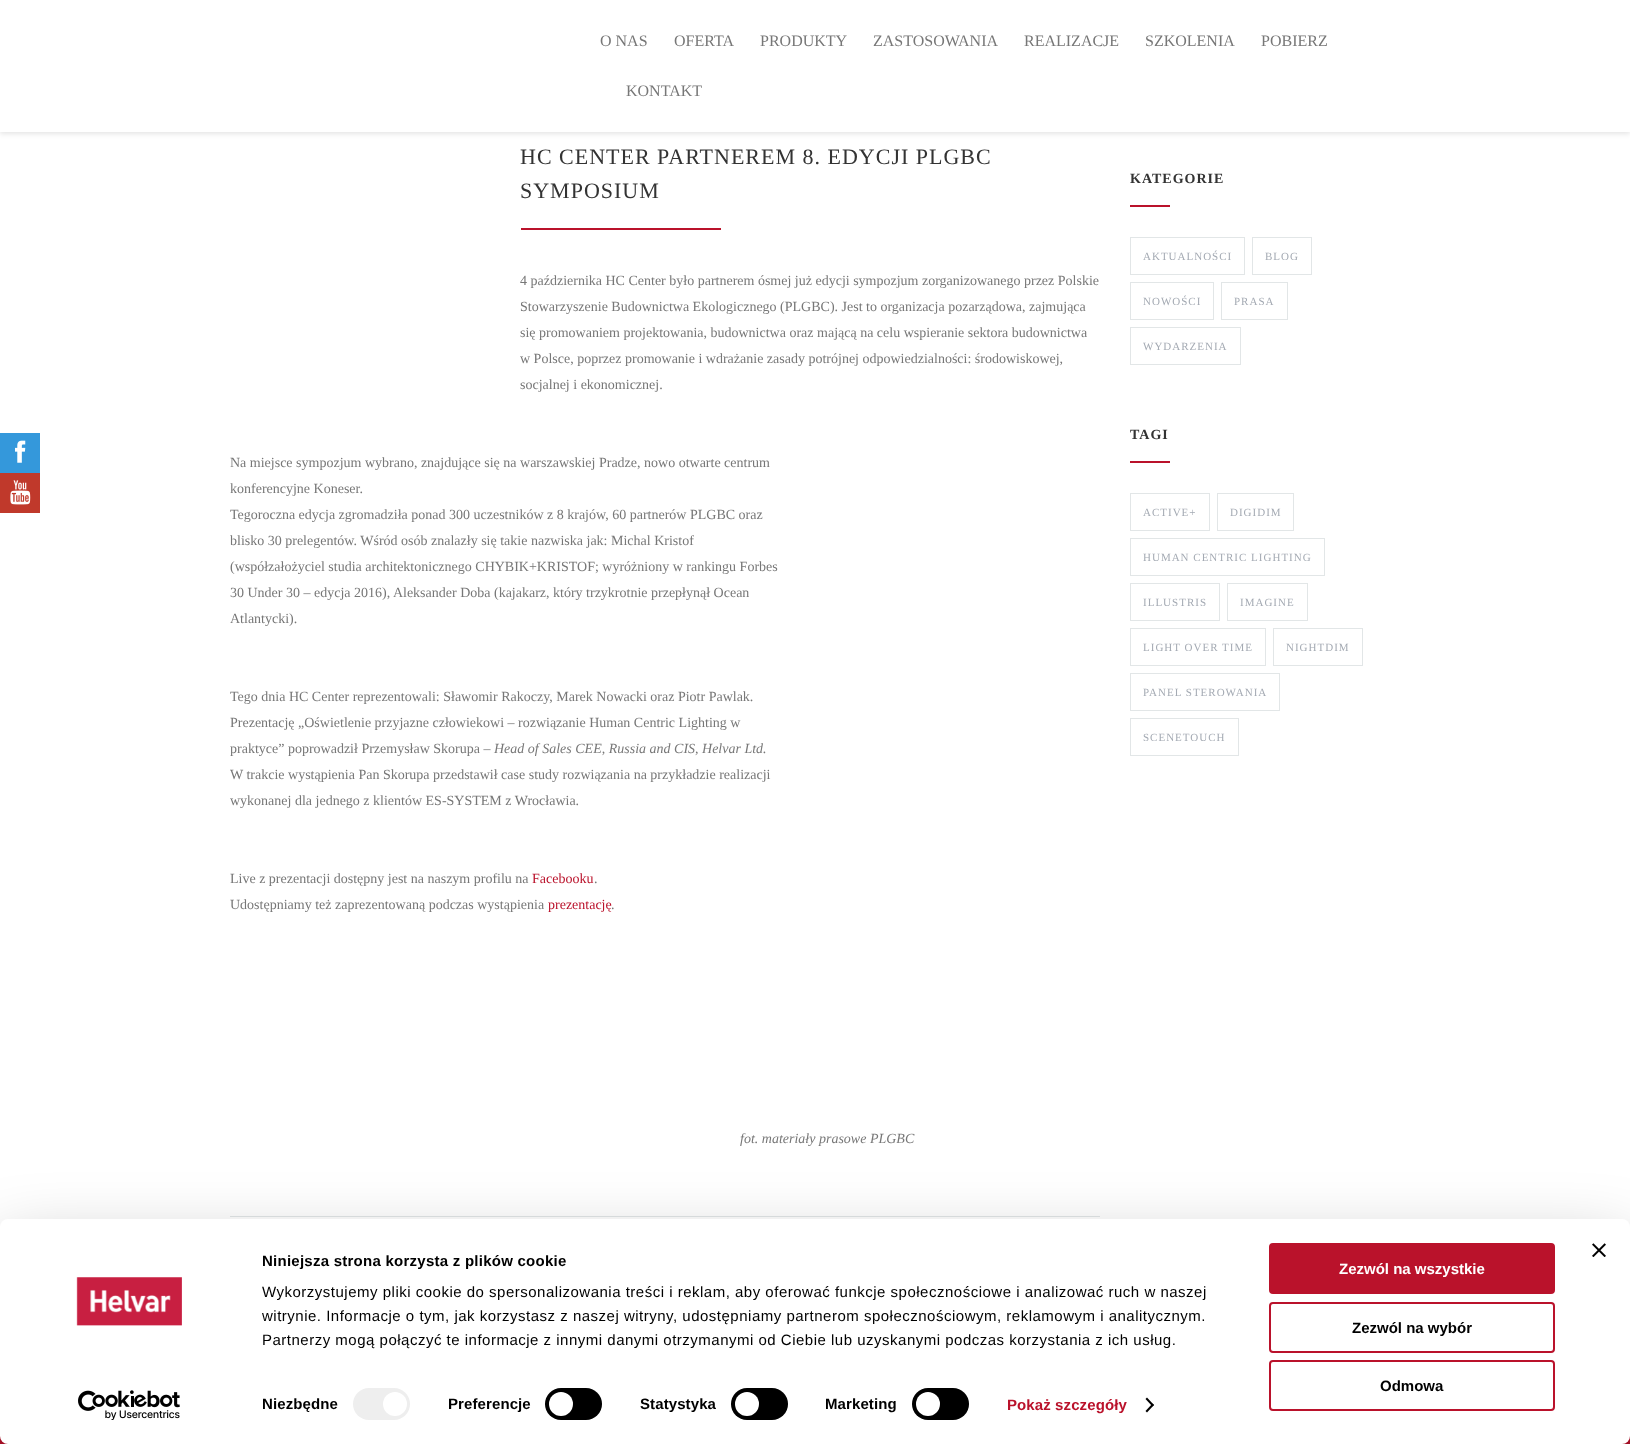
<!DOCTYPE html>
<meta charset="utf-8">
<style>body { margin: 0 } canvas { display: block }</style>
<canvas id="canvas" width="1630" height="1444"></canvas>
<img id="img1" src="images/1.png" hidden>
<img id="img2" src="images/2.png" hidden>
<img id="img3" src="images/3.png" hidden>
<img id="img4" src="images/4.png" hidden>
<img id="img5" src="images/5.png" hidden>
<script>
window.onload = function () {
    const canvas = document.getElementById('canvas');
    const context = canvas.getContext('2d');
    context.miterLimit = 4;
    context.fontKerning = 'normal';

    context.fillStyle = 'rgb(255, 255, 255)';
    context.fillRect(0, 0, 1630, 1444);
    context.fillStyle = 'rgb(52, 152, 219)';
    context.fillRect(0, 433, 40, 40);
    context.drawImage(document.getElementById('img1'), 15, 440, 11, 23);
    context.fillStyle = 'rgb(192, 57, 43)';
    context.fillRect(0, 473, 40, 40);
    context.drawImage(document.getElementById('img2'), 10, 480, 21, 25);
    context.fillStyle = 'rgba(0, 0, 0, 0.1)';
    context.filter = 'blur(2.5px)';
    context.beginPath();
    context.rect(0, 2, 1630, 132);
    context.fill();
    context.filter = 'none';
    context.fillStyle = 'rgb(255, 255, 255)';
    context.fillRect(0, 0, 1630, 132);
    context.fillStyle = 'rgb(226, 230, 231)';
    context.fillRect(230, 1216, 870, 1);
    context.fillStyle = 'rgb(186, 18, 43)';
    context.fillRect(521, 228, 200, 2);
    context.fillRect(1130, 205, 40, 2);
    context.strokeStyle = 'rgb(226, 230, 231)';
    context.strokeRect(1130.5, 237.5, 114, 37);
    context.strokeRect(1252.5, 237.5, 59, 37);
    context.strokeRect(1130.5, 282.5, 83, 37);
    context.strokeRect(1221.5, 282.5, 66, 37);
    context.strokeRect(1130.5, 327.5, 110, 37);
    context.fillRect(1130, 461, 40, 2);
    context.strokeRect(1130.5, 493.5, 79, 37);
    context.strokeRect(1217.5, 493.5, 76, 37);
    context.strokeRect(1130.5, 538.5, 194, 37);
    context.strokeRect(1130.5, 583.5, 89, 37);
    context.strokeRect(1227.5, 583.5, 80, 37);
    context.strokeRect(1130.5, 628.5, 135, 37);
    context.strokeRect(1273.5, 628.5, 89, 37);
    context.strokeRect(1130.5, 673.5, 149, 37);
    context.strokeRect(1130.5, 718.5, 108, 37);
    context.fillRect(0, 1436, 1630, 8);
    context.fillStyle = 'rgba(0, 0, 0, 0.3)';
    context.filter = 'blur(35px)';
    context.beginPath();
    context.roundRect(0, 1249, 1630, 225, 8);
    context.fill();
    context.filter = 'none';
    context.fillStyle = 'rgb(255, 255, 255)';
    context.beginPath();
    context.roundRect(0, 1219, 1630, 225, 8);
    context.fill();
    context.drawImage(document.getElementById('img3'), 1592, 1243, 14, 14);
    context.drawImage(document.getElementById('img4'), 76, 1277, 106, 49);
    context.drawImage(document.getElementById('img5'), 78, 1390, 102, 30);
    context.fillStyle = 'rgb(238, 238, 238)';
    context.beginPath();
    context.roundRect(353, 1388, 57, 32, 16);
    context.fill();
    context.fillStyle = 'rgb(255, 255, 255)';
    context.beginPath();
    context.arc(395, 1404, 12, 0, 2 * Math.PI);
    context.fill();
    context.fillStyle = 'rgb(0, 0, 0)';
    context.beginPath();
    context.roundRect(545, 1388, 57, 32, 16);
    context.fill();
    context.fillStyle = 'rgb(255, 255, 255)';
    context.beginPath();
    context.arc(561, 1404, 12, 0, 2 * Math.PI);
    context.fill();
    context.fillStyle = 'rgb(0, 0, 0)';
    context.beginPath();
    context.roundRect(731, 1388, 57, 32, 16);
    context.fill();
    context.fillStyle = 'rgb(255, 255, 255)';
    context.beginPath();
    context.arc(747, 1404, 12, 0, 2 * Math.PI);
    context.fill();
    context.fillStyle = 'rgb(0, 0, 0)';
    context.beginPath();
    context.roundRect(912, 1388, 57, 32, 16);
    context.fill();
    context.fillStyle = 'rgb(255, 255, 255)';
    context.beginPath();
    context.arc(928, 1404, 12, 0, 2 * Math.PI);
    context.fill();
    context.fillStyle = 'rgb(0, 0, 0)';
    context.beginPath();
    context.moveTo(1147, 1397.5);
    context.lineTo(1154, 1405);
    context.lineTo(1152.5, 1406.5);
    context.lineTo(1145.5, 1399);
    context.closePath();
    context.fill();
    context.beginPath();
    context.moveTo(1152.5, 1403.5);
    context.lineTo(1154, 1405);
    context.lineTo(1147, 1412.5);
    context.lineTo(1145.5, 1411);
    context.closePath();
    context.fill();
    context.fillStyle = 'rgb(186, 18, 43)';
    context.beginPath();
    context.roundRect(1270, 1244, 284, 49, 3);
    context.fill();
    context.strokeStyle = 'rgb(186, 18, 43)';
    context.lineWidth = 2;
    context.stroke();
    context.beginPath();
    context.roundRect(1270, 1303, 284, 49, 3);
    context.stroke();
    context.beginPath();
    context.roundRect(1270, 1361, 284, 49, 3);
    context.stroke();
    context.font = '16px Liberation Serif';
    context.fillStyle = 'rgb(119, 119, 119)';
    context.fillText('O NAS', 600, 46);
    context.fillText('OFERTA', 674, 46);
    context.fillText('PRODUKTY', 760, 46);
    context.fillText('ZASTOSOWANIA', 873, 46);
    context.fillText('REALIZACJE', 1024, 46);
    context.fillText('SZKOLENIA', 1145, 46);
    context.fillText('POBIERZ', 1261, 46);
    context.fillText('KONTAKT', 626, 96);
    context.letterSpacing = '1px';
    context.font = '22px Liberation Serif';
    context.fillStyle = 'rgb(51, 51, 51)';
    context.fillText('HC CENTER PARTNEREM 8. EDYCJI PLGBC', 520, 164);
    context.fillText('SYMPOSIUM', 520, 198);
    context.letterSpacing = '0px';
    context.font = '14px Liberation Serif';
    context.fillStyle = 'rgb(119, 119, 119)';
    context.fillText('4 października HC Center było partnerem ósmej już edycji sympozjum zorganizowanego przez Polskie', 520, 285);
    context.fillText('Stowarzyszenie Budownictwa Ekologicznego (PLGBC). Jest to organizacja pozarządowa, zajmująca', 520, 311);
    context.fillText('się promowaniem projektowania, budownictwa oraz mającą na celu wspieranie sektora budownictwa', 520, 337);
    context.fillText('w Polsce, poprzez promowanie i wdrażanie zasady potrójnej odpowiedzialności: środowiskowej,', 520, 363);
    context.fillText('socjalnej i ekonomicznej.', 520, 389);
    context.fillText('Na miejsce sympozjum wybrano, znajdujące się na warszawskiej Pradze, nowo otwarte centrum', 230, 467);
    context.fillText('konferencyjne Koneser.', 230, 493);
    context.fillText('Tegoroczna edycja zgromadziła ponad 300 uczestników z 8 krajów, 60 partnerów PLGBC oraz', 230, 519);
    context.fillText('blisko 30 prelegentów. Wśród osób znalazły się takie nazwiska jak: Michal Kristof', 230, 545);
    context.fillText('(współzałożyciel studia architektonicznego CHYBIK+KRISTOF; wyróżniony w rankingu Forbes', 230, 571);
    context.fillText('30 Under 30 – edycja 2016), Aleksander Doba (kajakarz, który trzykrotnie przepłynął Ocean', 230, 597);
    context.fillText('Atlantycki).', 230, 623);
    context.fillText('Tego dnia HC Center reprezentowali: Sławomir Rakoczy, Marek Nowacki oraz Piotr Pawlak.', 230, 701);
    context.fillText('Prezentację „Oświetlenie przyjazne człowiekowi – rozwiązanie Human Centric Lighting w', 230, 727);
    context.fillText('praktyce” poprowadził Przemysław Skorupa –', 230, 753);
    context.font = 'italic 14px Liberation Serif';
    context.fillText('Head of Sales CEE, Russia and CIS, Helvar Ltd.', 494, 753);
    context.font = '14px Liberation Serif';
    context.fillText('W trakcie wystąpienia Pan Skorupa przedstawił case study rozwiązania na przykładzie realizacji', 230, 779);
    context.fillText('wykonanej dla jednego z klientów ES-SYSTEM z Wrocławia.', 230, 805);
    context.fillText('Live z prezentacji dostępny jest na naszym profilu na', 230, 883);
    context.fillStyle = 'rgb(186, 18, 43)';
    context.fillText('Facebooku', 532, 883);
    context.fillStyle = 'rgb(119, 119, 119)';
    context.fillText('.', 594, 883);
    context.fillText('Udostępniamy też zaprezentowaną podczas wystąpienia', 230, 909);
    context.fillStyle = 'rgb(186, 18, 43)';
    context.fillText('prezentację', 548, 909);
    context.fillStyle = 'rgb(119, 119, 119)';
    context.fillText('.', 611, 909);
    context.font = 'italic 14px Liberation Serif';
    context.fillText('fot. materiały prasowe PLGBC', 740, 1143);
    context.letterSpacing = '1px';
    context.font = 'bold 14px Liberation Serif';
    context.fillStyle = 'rgb(51, 51, 51)';
    context.fillText('KATEGORIE', 1130, 183);
    context.font = '11px Liberation Serif';
    context.fillStyle = 'rgb(164, 170, 179)';
    context.fillText('AKTUALNOŚCI', 1143, 260);
    context.fillText('BLOG', 1265, 260);
    context.fillText('NOWOŚCI', 1143, 305);
    context.fillText('PRASA', 1234, 305);
    context.fillText('WYDARZENIA', 1143, 350);
    context.font = 'bold 14px Liberation Serif';
    context.fillStyle = 'rgb(51, 51, 51)';
    context.fillText('TAGI', 1130, 439);
    context.font = '11px Liberation Serif';
    context.fillStyle = 'rgb(164, 170, 179)';
    context.fillText('ACTIVE+', 1143, 516);
    context.fillText('DIGIDIM', 1230, 516);
    context.fillText('HUMAN CENTRIC LIGHTING', 1143, 561);
    context.fillText('ILLUSTRIS', 1143, 606);
    context.fillText('IMAGINE', 1240, 606);
    context.fillText('LIGHT OVER TIME', 1143, 651);
    context.fillText('NIGHTDIM', 1286, 651);
    context.fillText('PANEL STEROWANIA', 1143, 696);
    context.fillText('SCENETOUCH', 1143, 741);
    context.letterSpacing = '0.25px';
    context.font = 'bold 15px Liberation Sans';
    context.fillStyle = 'rgb(0, 0, 0)';
    context.fillText('Niniejsza strona korzysta z plików cookie', 262, 1266);
    context.letterSpacing = '0.5px';
    context.font = '15px Liberation Sans';
    context.fillText('Wykorzystujemy pliki cookie do spersonalizowania treści i reklam, aby oferować funkcje społecznościowe i analizować ruch w naszej', 262, 1297);
    context.fillText('witrynie. Informacje o tym, jak korzystasz z naszej witryny, udostępniamy partnerom społecznościowym, reklamowym i analitycznym.', 262, 1321);
    context.fillText('Partnerzy mogą połączyć te informacje z innymi danymi otrzymanymi od Ciebie lub uzyskanymi podczas korzystania z ich usług.', 262, 1345);
    context.letterSpacing = '0.1px';
    context.font = 'bold 15px Liberation Sans';
    context.fillText('Niezbędne', 262, 1409);
    context.fillText('Preferencje', 448, 1409);
    context.fillText('Statystyka', 640, 1409);
    context.fillText('Marketing', 825, 1409);
    context.fillStyle = 'rgb(186, 18, 43)';
    context.fillText('Pokaż szczegóły', 1007, 1410);
    context.letterSpacing = '0px';
    context.fillStyle = 'rgb(255, 255, 255)';
    context.fillText('Zezwól na wszystkie', 1339, 1274);
    context.fillStyle = 'rgb(0, 0, 0)';
    context.fillText('Zezwól na wybór', 1352, 1333);
    context.fillText('Odmowa', 1380, 1391);
};
</script>
